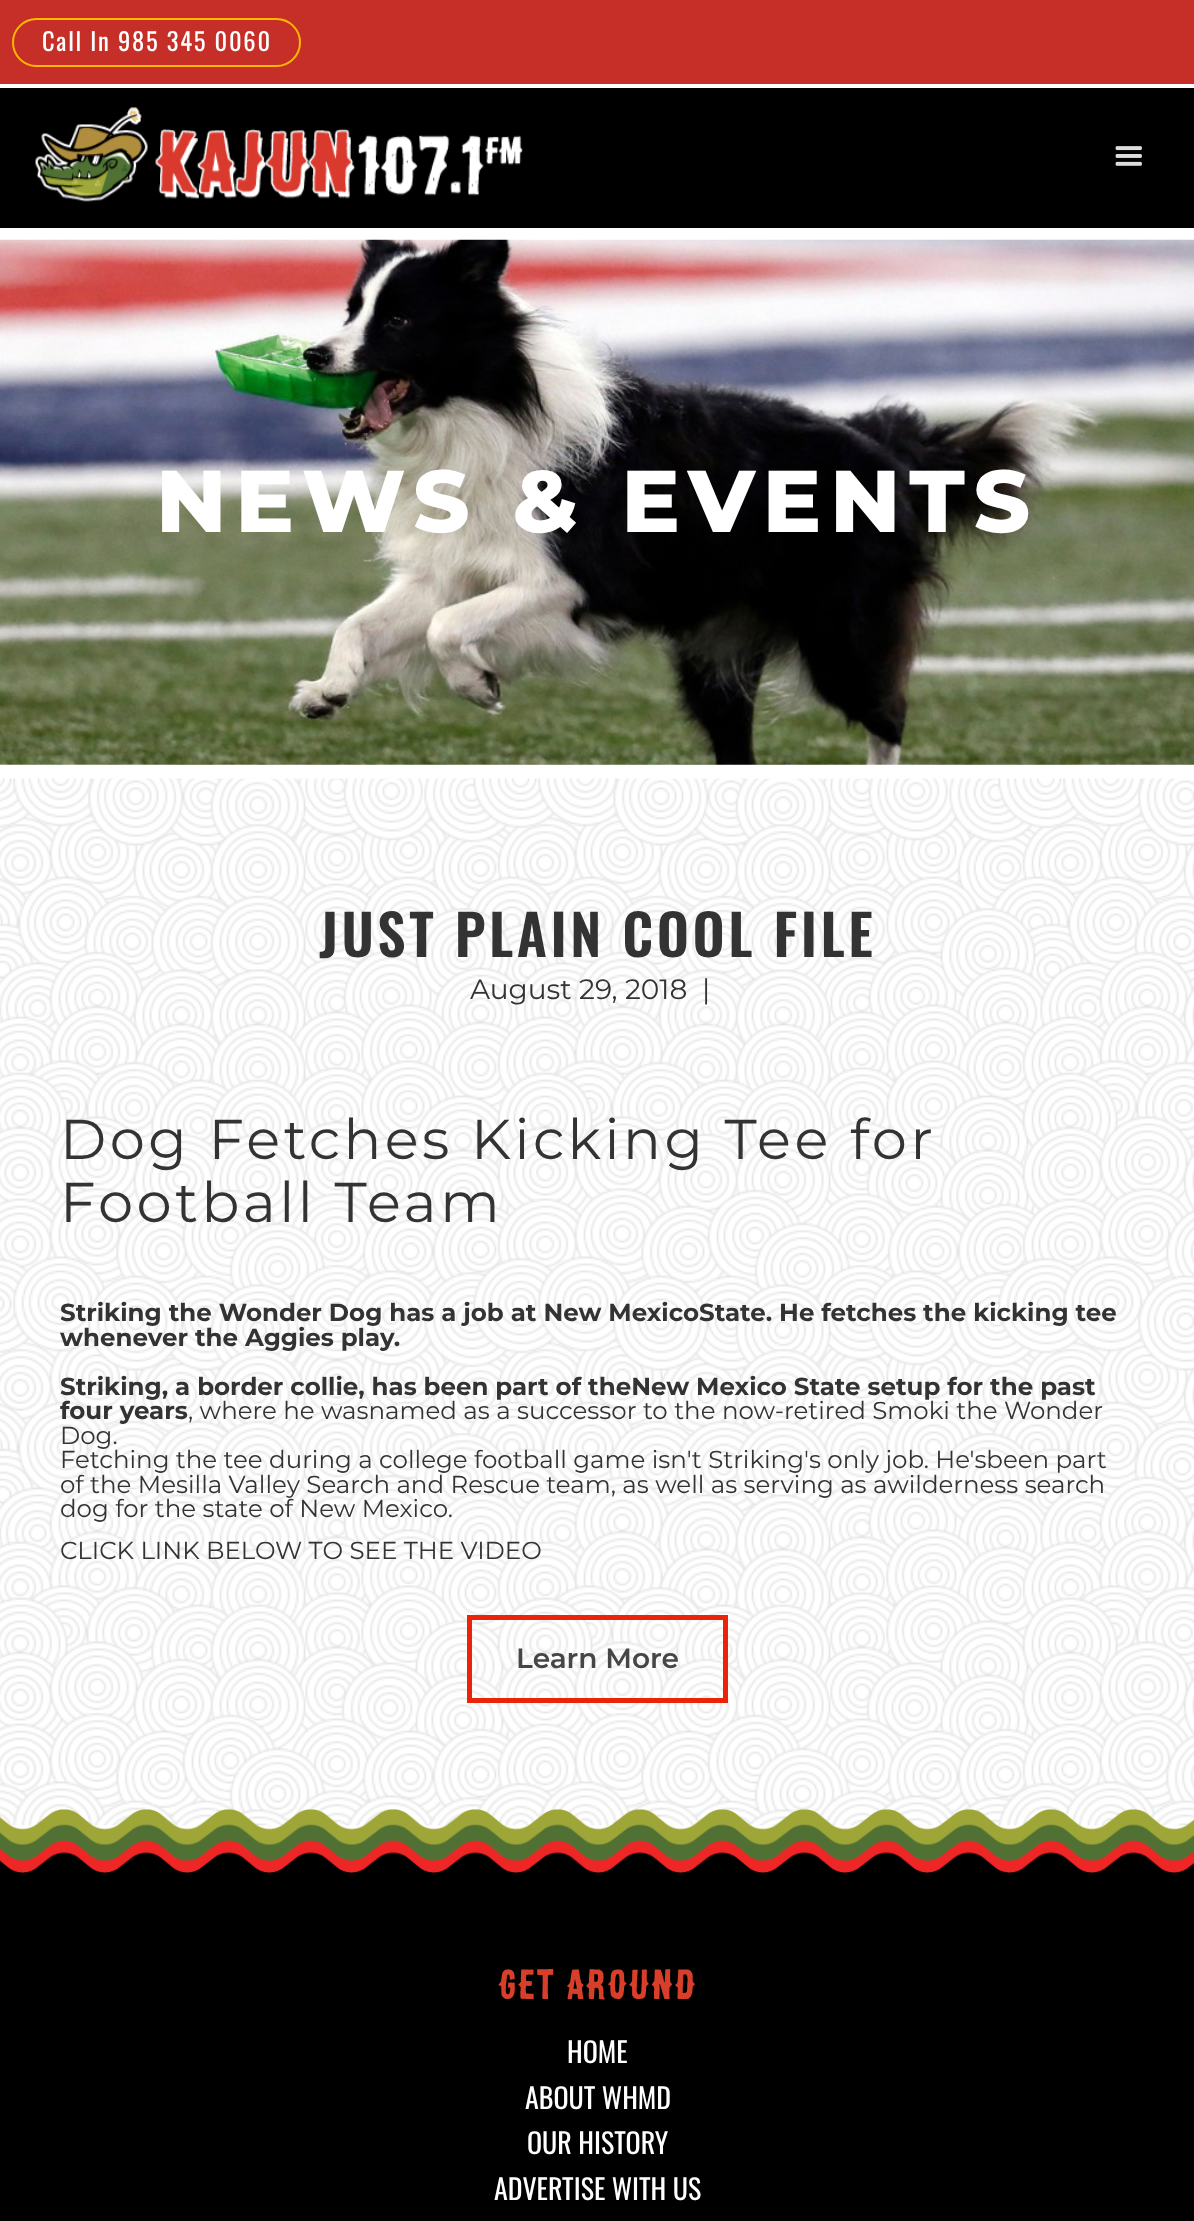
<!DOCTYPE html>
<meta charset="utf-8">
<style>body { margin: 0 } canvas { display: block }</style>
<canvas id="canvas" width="1194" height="2221"></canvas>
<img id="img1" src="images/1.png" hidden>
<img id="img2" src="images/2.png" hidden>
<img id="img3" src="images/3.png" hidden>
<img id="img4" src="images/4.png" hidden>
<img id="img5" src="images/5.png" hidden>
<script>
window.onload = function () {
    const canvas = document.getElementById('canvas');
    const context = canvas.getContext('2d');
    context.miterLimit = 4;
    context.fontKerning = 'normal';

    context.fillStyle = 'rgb(255, 255, 255)';
    context.fillRect(0, 0, 1194, 2221);
    context.fillStyle = 'rgb(198, 47, 40)';
    context.fillRect(0, 0, 1194, 84);
    context.beginPath();
    context.roundRect(13, 19, 287, 47, 23.5);
    context.strokeStyle = 'rgb(255, 184, 0)';
    context.lineWidth = 2;
    context.stroke();
    context.fillStyle = 'rgb(0, 0, 0)';
    context.fillRect(0, 88, 1194, 140);
    context.drawImage(document.getElementById('img1'), 35, 107, 488, 95);
    context.drawImage(document.getElementById('img2'), 1115, 146, 27, 20);
    context.drawImage(document.getElementById('img3'), 0, 239, 1194, 526);
    context.drawImage(document.getElementById('img4'), 0, 778, 1194, 1048);
    context.strokeStyle = 'rgb(235, 35, 8)';
    context.lineWidth = 5;
    context.strokeRect(469.5, 1617.5, 256, 83);
    context.drawImage(document.getElementById('img5'), 0, 1809, 1194, 67);
    context.fillRect(0, 1876, 1194, 345);
    context.letterSpacing = '1.75px';
    context.font = '24.5px Oswald';
    context.fillStyle = 'rgb(255, 255, 255)';
    context.fillText('Call In 985 345 0060', 42, 51);
    context.letterSpacing = '8.75px';
    context.font = '800 87.5px Montserrat';
    context.fillText('NEWS & EVENTS', 156, 532);
    context.letterSpacing = '3.5px';
    context.font = '600 56px Oswald';
    context.fillStyle = 'rgb(51, 51, 51)';
    context.fillText('JUST PLAIN COOL FILE', 319, 957);
    context.letterSpacing = '0px';
    context.font = '28px Montserrat';
    context.fillText('August 29, 2018', 470, 999);
    context.fillText('|', 702, 999);
    context.letterSpacing = '3.5px';
    context.font = '56px Montserrat';
    context.fillText('Dog Fetches Kicking Tee for', 60, 1159);
    context.fillText('Football Team', 60, 1222);
    context.letterSpacing = '0px';
    context.font = 'bold 24.5px Montserrat';
    context.fillText('Striking the Wonder Dog has a job at New MexicoState. He fetches the kicking tee', 60, 1321);
    context.fillText('whenever the Aggies play.', 60, 1346);
    context.fillText('Striking, a border collie, has been part of theNew Mexico State setup for the past', 60, 1395);
    context.fillText('four years', 60, 1419);
    context.font = '24.5px Montserrat';
    context.fillText(', where he wasnamed as a successor to the now-retired Smoki the Wonder', 188, 1419);
    context.fillText('Dog.', 60, 1444);
    context.fillText('Fetching the tee during a college football game isn\'t Striking\'s only job. He\'sbeen part', 60, 1468);
    context.fillText('of the Mesilla Valley Search and Rescue team, as well as serving as awilderness search', 60, 1493);
    context.fillText('dog for the state of New Mexico.', 60, 1517);
    context.fillText('CLICK LINK BELOW TO SEE THE VIDEO', 60, 1559);
    context.font = '600 28px Montserrat';
    context.fillStyle = 'rgb(70, 70, 70)';
    context.fillText('Learn More', 516, 1668);
    context.letterSpacing = '1.75px';
    context.font = '36.75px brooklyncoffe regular';
    context.fillStyle = 'rgb(215, 63, 42)';
    context.fillText('Get around', 498, 1999);
    context.letterSpacing = '0px';
    context.font = '28px Oswald';
    context.fillStyle = 'rgb(255, 255, 255)';
    context.fillText('HOME', 567, 2063);
    context.fillText('ABOUT WHMD', 525, 2109);
    context.fillText('OUR HISTORY', 527, 2154);
    context.fillText('ADVERTISE WITH US', 494, 2200);
};
</script>
